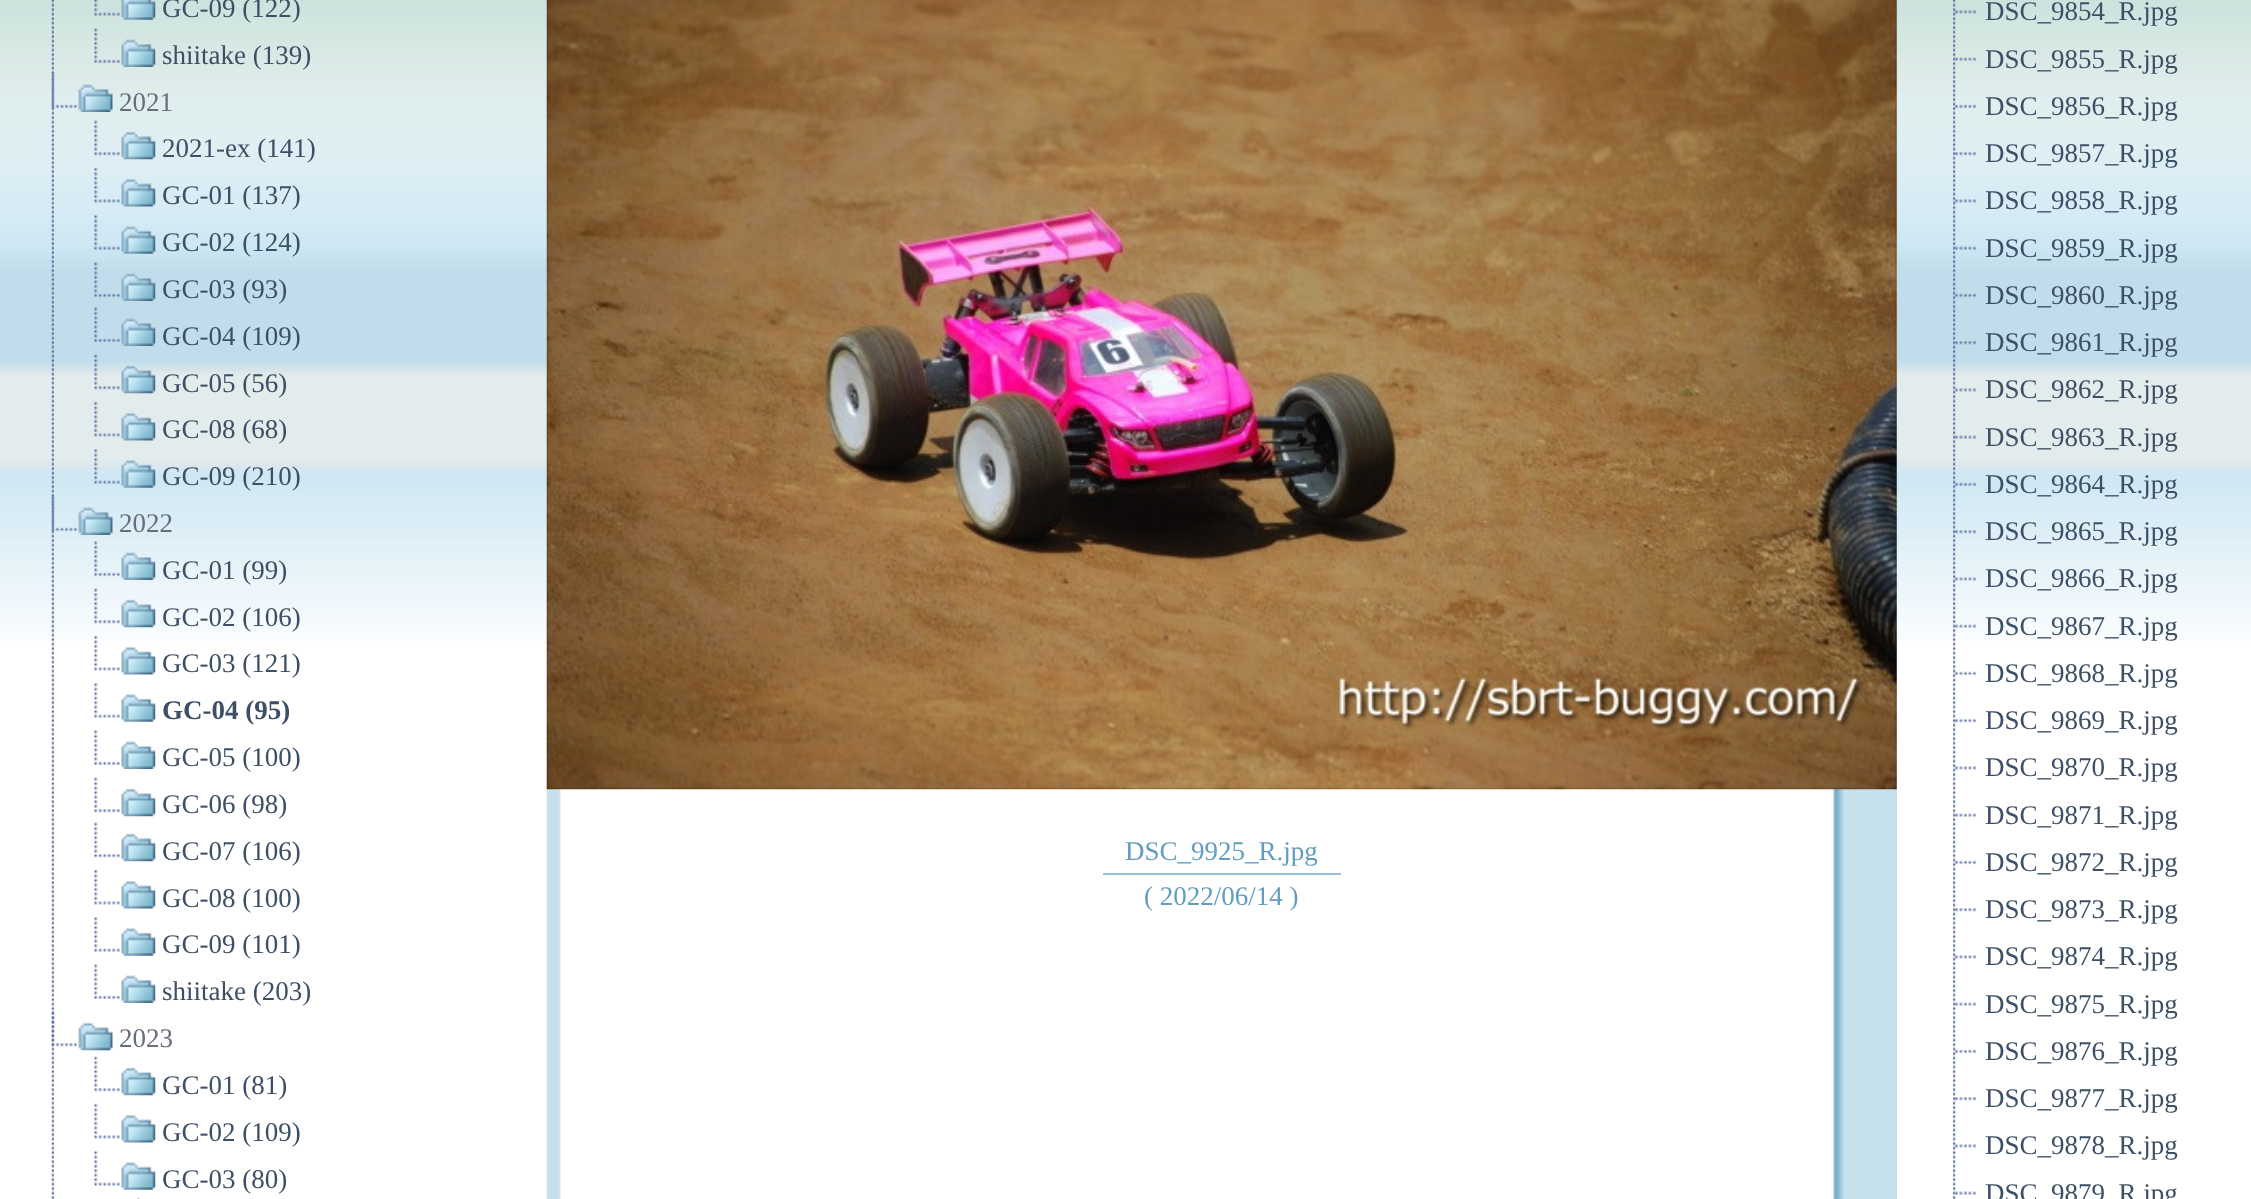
<!DOCTYPE html>
<meta charset="utf-8">
<style>body { margin: 0 } canvas { display: block }</style>
<canvas id="canvas" width="2251" height="1199"></canvas>
<img id="img1" src="images/1.png" hidden>
<img id="img2" src="images/2.png" hidden>
<img id="img3" src="images/3.png" hidden>
<img id="img4" src="images/4.png" hidden>
<img id="img5" src="images/5.png" hidden>
<img id="img6" src="images/6.png" hidden>
<img id="img7" src="images/7.png" hidden>
<img id="img8" src="images/8.png" hidden>
<img id="img9" src="images/9.png" hidden>
<img id="img10" src="images/10.png" hidden>
<img id="img11" src="images/11.png" hidden>
<img id="img12" src="images/12.png" hidden>
<img id="img13" src="images/13.png" hidden>
<img id="img14" src="images/14.png" hidden>
<img id="img15" src="images/15.png" hidden>
<img id="img16" src="images/16.png" hidden>
<img id="img17" src="images/17.png" hidden>
<img id="img18" src="images/18.png" hidden>
<img id="img19" src="images/19.png" hidden>
<img id="img20" src="images/20.png" hidden>
<img id="img21" src="images/21.png" hidden>
<img id="img22" src="images/22.png" hidden>
<img id="img23" src="images/23.png" hidden>
<img id="img24" src="images/24.png" hidden>
<img id="img25" src="images/25.png" hidden>
<img id="img26" src="images/26.png" hidden>
<img id="img27" src="images/27.png" hidden>
<img id="img28" src="images/28.png" hidden>
<img id="img29" src="images/29.png" hidden>
<img id="img30" src="images/30.png" hidden>
<img id="img31" src="images/31.png" hidden>
<img id="img32" src="images/32.png" hidden>
<img id="img33" src="images/33.png" hidden>
<img id="img34" src="images/34.png" hidden>
<img id="img35" src="images/35.png" hidden>
<img id="img36" src="images/36.png" hidden>
<img id="img37" src="images/37.png" hidden>
<img id="img38" src="images/38.png" hidden>
<img id="img39" src="images/39.png" hidden>
<img id="img40" src="images/40.png" hidden>
<img id="img41" src="images/41.png" hidden>
<img id="img42" src="images/42.png" hidden>
<img id="img43" src="images/43.png" hidden>
<img id="img44" src="images/44.png" hidden>
<img id="img45" src="images/45.png" hidden>
<img id="img46" src="images/46.png" hidden>
<img id="img47" src="images/47.png" hidden>
<img id="img48" src="images/48.png" hidden>
<img id="img49" src="images/49.png" hidden>
<img id="img50" src="images/50.png" hidden>
<script>
window.onload = function () {
    const canvas = document.getElementById('canvas');
    const context = canvas.getContext('2d');
    context.miterLimit = 4;
    context.fontKerning = 'normal';

    context.fillStyle = 'rgb(255, 255, 255)';
    context.fillRect(0, 0, 2251, 1199);
    context.drawImage(document.getElementById('img1'), 0, 0, 2251, 641);
    context.drawImage(document.getElementById('img2'), 51, 0, 3, 1199);
    context.drawImage(document.getElementById('img3'), 94, 0, 62, 20);
    context.drawImage(document.getElementById('img4'), 94, 28, 62, 39);
    context.drawImage(document.getElementById('img5'), 51, 73, 62, 39);
    context.drawImage(document.getElementById('img6'), 94, 120, 62, 40);
    context.drawImage(document.getElementById('img7'), 94, 167, 62, 40);
    context.drawImage(document.getElementById('img8'), 94, 215, 62, 39);
    context.drawImage(document.getElementById('img9'), 94, 262, 62, 39);
    context.drawImage(document.getElementById('img10'), 94, 307, 62, 39);
    context.drawImage(document.getElementById('img11'), 94, 354, 62, 40);
    context.drawImage(document.getElementById('img12'), 94, 401, 62, 40);
    context.drawImage(document.getElementById('img13'), 94, 449, 62, 39);
    context.drawImage(document.getElementById('img14'), 51, 496, 62, 39);
    context.drawImage(document.getElementById('img15'), 94, 541, 62, 39);
    context.drawImage(document.getElementById('img16'), 94, 588, 62, 40);
    context.drawImage(document.getElementById('img17'), 94, 635, 62, 40);
    context.drawImage(document.getElementById('img18'), 94, 683, 62, 39);
    context.drawImage(document.getElementById('img19'), 94, 730, 62, 39);
    context.drawImage(document.getElementById('img20'), 94, 777, 62, 40);
    context.drawImage(document.getElementById('img20'), 94, 822, 62, 40);
    context.drawImage(document.getElementById('img21'), 94, 869, 62, 40);
    context.drawImage(document.getElementById('img18'), 94, 917, 62, 39);
    context.drawImage(document.getElementById('img22'), 94, 964, 62, 39);
    context.drawImage(document.getElementById('img23'), 51, 1011, 62, 40);
    context.drawImage(document.getElementById('img20'), 94, 1056, 62, 40);
    context.drawImage(document.getElementById('img24'), 94, 1103, 62, 40);
    context.drawImage(document.getElementById('img18'), 94, 1151, 62, 39);
    context.drawImage(document.getElementById('img25'), 137, 1198, 3, 1);
    context.fillStyle = 'rgb(198, 224, 236)';
    context.fillRect(1844, 0, 53, 1199);
    context.drawImage(document.getElementById('img26'), 546, 0, 1298, 1199);
    context.drawImage(document.getElementById('img27'), 546, 0, 1351, 790);
    context.fillStyle = 'rgb(149, 193, 214)';
    context.fillRect(1103, 873, 238, 2);
    context.drawImage(document.getElementById('img28'), 1953, 0, 3, 1199);
    context.drawImage(document.getElementById('img29'), 1954, 10, 23, 4);
    context.drawImage(document.getElementById('img30'), 1954, 57, 23, 4);
    context.drawImage(document.getElementById('img31'), 1954, 104, 23, 5);
    context.drawImage(document.getElementById('img32'), 1954, 152, 23, 4);
    context.drawImage(document.getElementById('img33'), 1954, 199, 23, 4);
    context.drawImage(document.getElementById('img34'), 1954, 246, 23, 4);
    context.drawImage(document.getElementById('img35'), 1954, 293, 23, 5);
    context.drawImage(document.getElementById('img36'), 1955, 341, 22, 4);
    context.drawImage(document.getElementById('img37'), 1954, 388, 23, 4);
    context.drawImage(document.getElementById('img38'), 1954, 435, 23, 4);
    context.drawImage(document.getElementById('img39'), 1954, 482, 23, 5);
    context.drawImage(document.getElementById('img40'), 1954, 530, 23, 4);
    context.drawImage(document.getElementById('img41'), 1954, 577, 23, 4);
    context.drawImage(document.getElementById('img42'), 1954, 624, 23, 4);
    context.drawImage(document.getElementById('img43'), 1954, 671, 23, 5);
    context.drawImage(document.getElementById('img44'), 1954, 719, 23, 4);
    context.drawImage(document.getElementById('img45'), 1954, 766, 23, 4);
    context.drawImage(document.getElementById('img46'), 1954, 813, 23, 4);
    context.drawImage(document.getElementById('img47'), 1954, 860, 23, 5);
    context.drawImage(document.getElementById('img48'), 1954, 908, 23, 4);
    context.drawImage(document.getElementById('img45'), 1954, 955, 23, 4);
    context.drawImage(document.getElementById('img46'), 1954, 1002, 23, 4);
    context.drawImage(document.getElementById('img47'), 1954, 1049, 23, 5);
    context.drawImage(document.getElementById('img48'), 1954, 1097, 23, 4);
    context.drawImage(document.getElementById('img49'), 1954, 1144, 23, 4);
    context.drawImage(document.getElementById('img50'), 1954, 1191, 23, 4);
    context.font = '27px Liberation Serif';
    context.fillStyle = 'rgb(61, 79, 102)';
    context.fillText('GC-09 (122)', 162, 17);
    context.fillText('shiitake (139)', 162, 64);
    context.fillStyle = 'rgb(104, 109, 124)';
    context.fillText('2021', 119, 111);
    context.fillStyle = 'rgb(61, 79, 102)';
    context.fillText('2021-ex (141)', 162, 157);
    context.fillText('GC-01 (137)', 162, 204);
    context.fillText('GC-02 (124)', 162, 251);
    context.fillText('GC-03 (93)', 162, 298);
    context.fillText('GC-04 (109)', 162, 345);
    context.fillText('GC-05 (56)', 162, 392);
    context.fillText('GC-08 (68)', 162, 438);
    context.fillText('GC-09 (210)', 162, 485);
    context.fillStyle = 'rgb(104, 109, 124)';
    context.fillText('2022', 119, 532);
    context.fillStyle = 'rgb(61, 79, 102)';
    context.fillText('GC-01 (99)', 162, 579);
    context.fillText('GC-02 (106)', 162, 626);
    context.fillText('GC-03 (121)', 162, 672);
    context.font = 'bold 27px Liberation Serif';
    context.fillText('GC-04 (95)', 162, 719);
    context.font = '27px Liberation Serif';
    context.fillText('GC-05 (100)', 162, 766);
    context.fillText('GC-06 (98)', 162, 813);
    context.fillText('GC-07 (106)', 162, 860);
    context.fillText('GC-08 (100)', 162, 907);
    context.fillText('GC-09 (101)', 162, 953);
    context.fillText('shiitake (203)', 162, 1000);
    context.fillStyle = 'rgb(104, 109, 124)';
    context.fillText('2023', 119, 1047);
    context.fillStyle = 'rgb(61, 79, 102)';
    context.fillText('GC-01 (81)', 162, 1094);
    context.fillText('GC-02 (109)', 162, 1141);
    context.fillText('GC-03 (80)', 162, 1188);
    context.fillStyle = 'rgb(98, 157, 190)';
    context.fillText('DSC_9925_R.jpg', 1125, 860);
    context.fillText('( 2022/06/14 )', 1144, 905);
    context.fillStyle = 'rgb(61, 79, 102)';
    context.fillText('DSC_9854_R.jpg', 1985, 20);
    context.fillText('DSC_9855_R.jpg', 1985, 68);
    context.fillText('DSC_9856_R.jpg', 1985, 115);
    context.fillText('DSC_9857_R.jpg', 1985, 162);
    context.fillText('DSC_9858_R.jpg', 1985, 209);
    context.fillText('DSC_9859_R.jpg', 1985, 257);
    context.fillText('DSC_9860_R.jpg', 1985, 304);
    context.fillText('DSC_9861_R.jpg', 1985, 351);
    context.fillText('DSC_9862_R.jpg', 1985, 398);
    context.fillText('DSC_9863_R.jpg', 1985, 446);
    context.fillText('DSC_9864_R.jpg', 1985, 493);
    context.fillText('DSC_9865_R.jpg', 1985, 540);
    context.fillText('DSC_9866_R.jpg', 1985, 587);
    context.fillText('DSC_9867_R.jpg', 1985, 635);
    context.fillText('DSC_9868_R.jpg', 1985, 682);
    context.fillText('DSC_9869_R.jpg', 1985, 729);
    context.fillText('DSC_9870_R.jpg', 1985, 776);
    context.fillText('DSC_9871_R.jpg', 1985, 824);
    context.fillText('DSC_9872_R.jpg', 1985, 871);
    context.fillText('DSC_9873_R.jpg', 1985, 918);
    context.fillText('DSC_9874_R.jpg', 1985, 965);
    context.fillText('DSC_9875_R.jpg', 1985, 1013);
    context.fillText('DSC_9876_R.jpg', 1985, 1060);
    context.fillText('DSC_9877_R.jpg', 1985, 1107);
    context.fillText('DSC_9878_R.jpg', 1985, 1154);
    context.fillText('DSC_9879_R.jpg', 1985, 1202);
};
</script>
